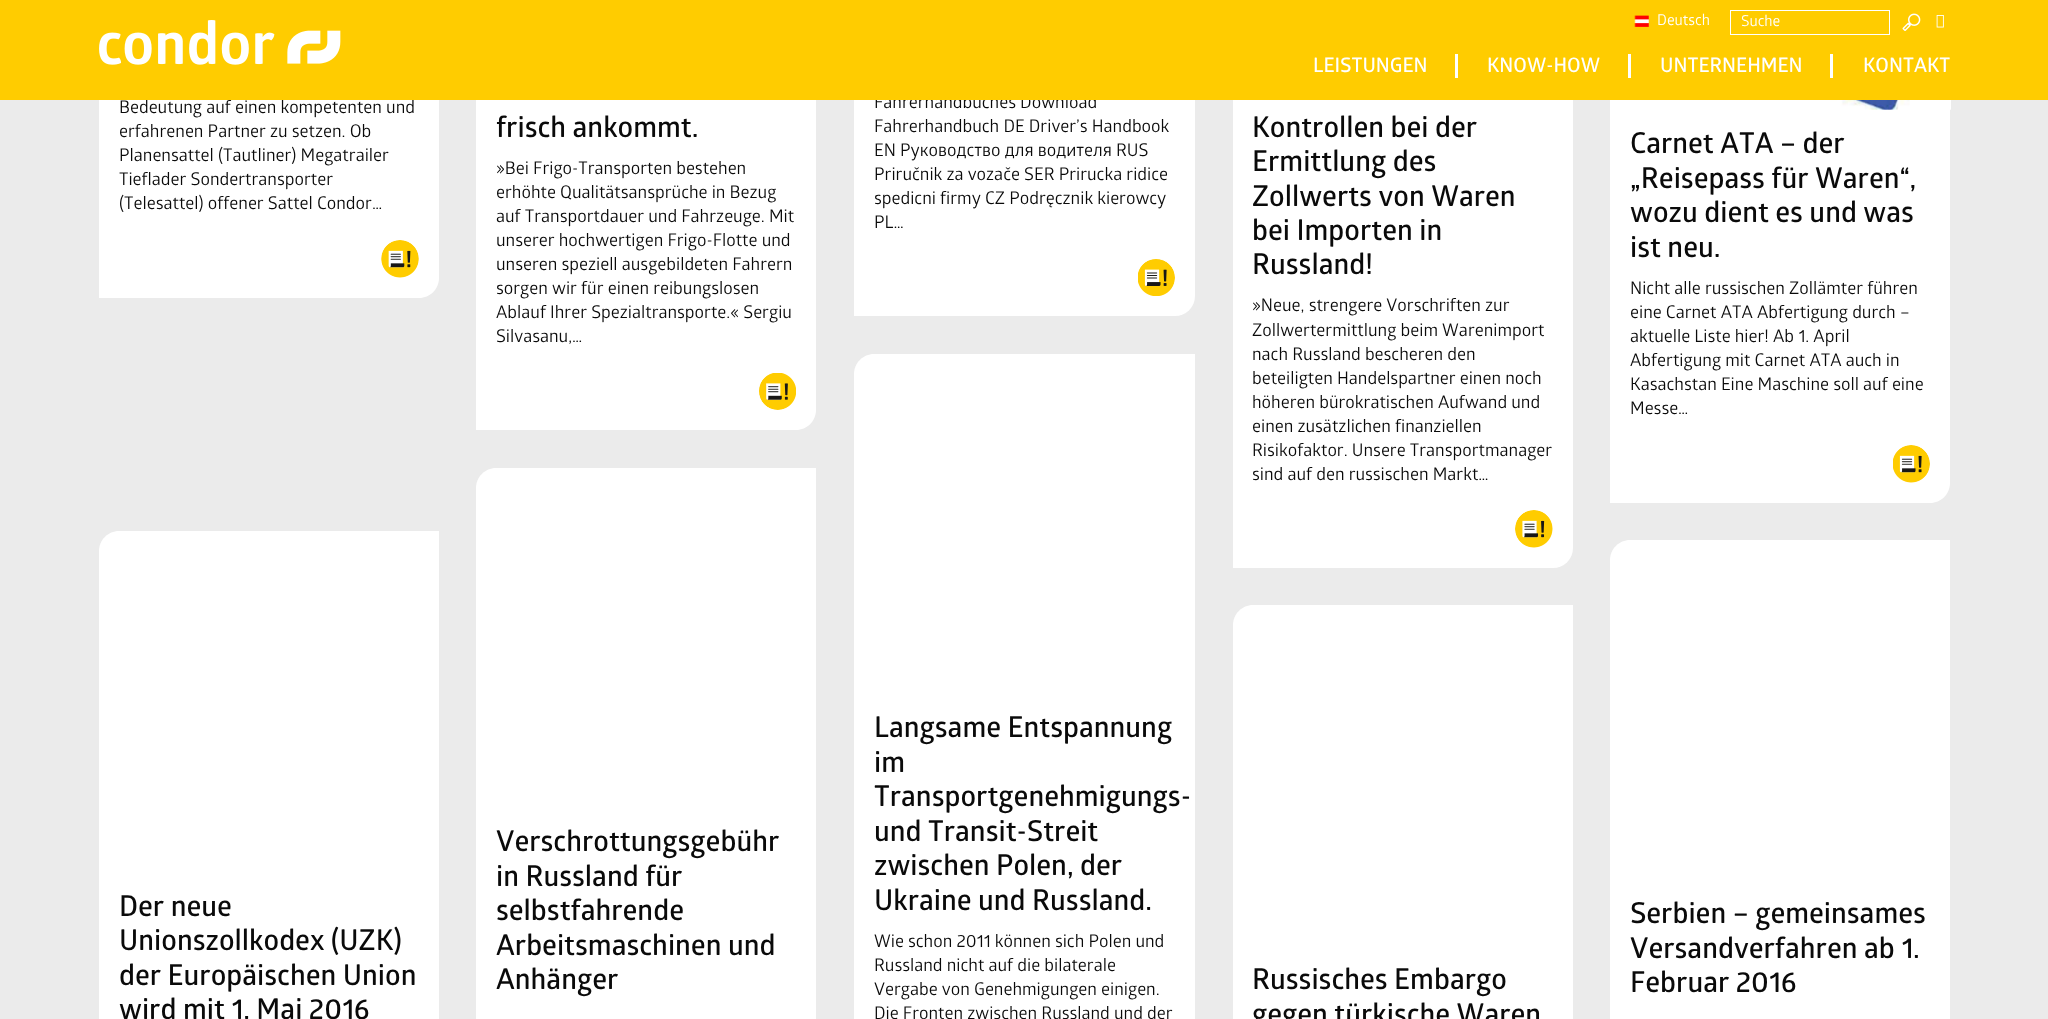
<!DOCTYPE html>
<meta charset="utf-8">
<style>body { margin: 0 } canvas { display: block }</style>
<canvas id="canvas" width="2048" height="1019"></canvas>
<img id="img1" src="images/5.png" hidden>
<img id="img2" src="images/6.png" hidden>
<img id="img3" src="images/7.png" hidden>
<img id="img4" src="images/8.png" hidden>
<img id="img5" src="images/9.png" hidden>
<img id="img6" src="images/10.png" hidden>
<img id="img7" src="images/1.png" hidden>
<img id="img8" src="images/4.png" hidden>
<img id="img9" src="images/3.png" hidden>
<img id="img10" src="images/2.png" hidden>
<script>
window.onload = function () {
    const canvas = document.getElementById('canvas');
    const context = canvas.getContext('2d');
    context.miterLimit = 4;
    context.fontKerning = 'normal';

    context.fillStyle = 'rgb(235, 235, 235)';
    context.fillRect(0, 0, 2048, 1019);
    context.fillStyle = 'rgb(255, 255, 255)';
    context.beginPath();
    context.moveTo(119, -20);
    context.lineTo(439, -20);
    context.lineTo(439, 278);
    context.bezierCurveTo(439, 289, 430, 298, 419, 298);
    context.lineTo(99, 298);
    context.lineTo(99, 0);
    context.bezierCurveTo(99, -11, 108, -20, 119, -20);
    context.closePath();
    context.fill();
    context.drawImage(document.getElementById('img1'), 381, 240, 38, 38);
    context.beginPath();
    context.arc(400, 259, 19.5, 0, 2 * Math.PI);
    context.strokeStyle = 'rgb(255, 255, 255)';
    context.stroke();
    context.beginPath();
    context.moveTo(496, -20);
    context.lineTo(816, -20);
    context.lineTo(816, 410);
    context.bezierCurveTo(816, 421, 807, 430, 796, 430);
    context.lineTo(476, 430);
    context.lineTo(476, 0);
    context.bezierCurveTo(476, -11, 485, -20, 496, -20);
    context.closePath();
    context.fill();
    context.drawImage(document.getElementById('img2'), 759, 373, 37, 37);
    context.beginPath();
    context.arc(778, 391, 19.5, 0, 2 * Math.PI);
    context.stroke();
    context.beginPath();
    context.roundRect(854, 3, 341, 313, [20, 0, 20, 0]);
    context.fill();
    context.drawImage(document.getElementById('img3'), 1138, 259, 37, 37);
    context.beginPath();
    context.arc(1156, 278, 19.5, 0, 2 * Math.PI);
    context.stroke();
    context.beginPath();
    context.roundRect(1233, 59, 340, 509, [20, 0, 20, 0]);
    context.fill();
    context.drawImage(document.getElementById('img4'), 1515, 510, 38, 38);
    context.beginPath();
    context.arc(1534, 529, 19.5, 0, 2 * Math.PI);
    context.stroke();
    context.beginPath();
    context.moveTo(1630, -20);
    context.lineTo(1950, -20);
    context.lineTo(1950, 483);
    context.bezierCurveTo(1950, 494, 1941, 503, 1930, 503);
    context.lineTo(1610, 503);
    context.lineTo(1610, 0);
    context.bezierCurveTo(1610, -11, 1619, -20, 1630, -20);
    context.closePath();
    context.fill();
    context.drawImage(document.getElementById('img5'), 1610, 100, 341, 10);
    context.drawImage(document.getElementById('img6'), 1893, 445, 37, 38);
    context.beginPath();
    context.arc(1911, 464, 19.5, 0, 2 * Math.PI);
    context.stroke();
    context.beginPath();
    context.moveTo(119, 531);
    context.lineTo(439, 531);
    context.lineTo(439, 1019);
    context.bezierCurveTo(439, 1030, 430, 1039, 419, 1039);
    context.lineTo(99, 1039);
    context.lineTo(99, 551);
    context.bezierCurveTo(99, 540, 108, 531, 119, 531);
    context.closePath();
    context.fill();
    context.beginPath();
    context.moveTo(496, 468);
    context.lineTo(816, 468);
    context.lineTo(816, 1019);
    context.bezierCurveTo(816, 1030, 807, 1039, 796, 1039);
    context.lineTo(476, 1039);
    context.lineTo(476, 488);
    context.bezierCurveTo(476, 477, 485, 468, 496, 468);
    context.closePath();
    context.fill();
    context.beginPath();
    context.moveTo(874, 354);
    context.lineTo(1195, 354);
    context.lineTo(1195, 1019);
    context.bezierCurveTo(1195, 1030, 1186, 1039, 1175, 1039);
    context.lineTo(854, 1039);
    context.lineTo(854, 374);
    context.bezierCurveTo(854, 363, 863, 354, 874, 354);
    context.closePath();
    context.fill();
    context.beginPath();
    context.moveTo(1253, 605);
    context.lineTo(1573, 605);
    context.lineTo(1573, 1019);
    context.bezierCurveTo(1573, 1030, 1564, 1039, 1553, 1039);
    context.lineTo(1233, 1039);
    context.lineTo(1233, 625);
    context.bezierCurveTo(1233, 614, 1242, 605, 1253, 605);
    context.closePath();
    context.fill();
    context.beginPath();
    context.moveTo(1630, 540);
    context.lineTo(1950, 540);
    context.lineTo(1950, 1019);
    context.bezierCurveTo(1950, 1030, 1941, 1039, 1930, 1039);
    context.lineTo(1610, 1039);
    context.lineTo(1610, 560);
    context.bezierCurveTo(1610, 549, 1619, 540, 1630, 540);
    context.closePath();
    context.fill();
    context.font = '17.5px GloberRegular';
    context.fillStyle = 'rgb(10, 10, 10)';
    context.fillText('Bedeutung auf einen kompetenten und', 119, 113);
    context.fillText('erfahrenen Partner zu setzen. Ob', 119, 137);
    context.fillText('Planensattel (Tautliner) Megatrailer', 119, 161);
    context.fillText('Tieflader Sondertransporter', 119, 185);
    context.fillText('(Telesattel) offener Sattel Condor…', 119, 209);
    context.font = '600 28.75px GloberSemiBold';
    context.fillText('frisch ankommt.', 496, 137);
    context.font = '17.5px GloberRegular';
    context.fillText('»Bei Frigo-Transporten bestehen', 496, 174);
    context.fillText('erhöhte Qualitätsansprüche in Bezug', 496, 198);
    context.fillText('auf Transportdauer und Fahrzeuge. Mit', 496, 222);
    context.fillText('unserer hochwertigen Frigo-Flotte und', 496, 246);
    context.fillText('unseren speziell ausgebildeten Fahrern', 496, 270);
    context.fillText('sorgen wir für einen reibungslosen', 496, 294);
    context.fillText('Ablauf Ihrer Spezialtransporte.« Sergiu', 496, 318);
    context.fillText('Silvasanu,…', 496, 342);
    context.fillText('Fahrerhandbuches Download', 874, 108);
    context.fillStyle = 'rgb(255, 204, 0)';
    context.fillRect(0, 0, 2048, 100);
    context.drawImage(document.getElementById('img7'), 99, 20, 242, 45);
    context.drawImage(document.getElementById('img8'), 1936, 15, 8, 13);
    context.drawImage(document.getElementById('img9'), 1902, 13, 19, 18);
    context.strokeRect(1730.5, 10.5, 159, 24);
    context.font = '15px GloberRegular';
    context.fillStyle = 'rgb(255, 255, 255)';
    context.fillText('Suche', 1741, 26);
    context.drawImage(document.getElementById('img10'), 1634, 15, 15, 12);
    context.fillText('Deutsch', 1657, 25);
    context.font = '600 20px GloberSemiBold';
    context.fillText('KONTAKT', 1863, 72);
    context.fillRect(1830, 54, 3, 24);
    context.fillText('UNTERNEHMEN', 1660, 72);
    context.fillRect(1628, 54, 3, 24);
    context.fillText('KNOW-HOW', 1487, 72);
    context.fillRect(1455, 54, 3, 24);
    context.fillText('LEISTUNGEN', 1313, 72);
    context.font = '17.5px GloberRegular';
    context.fillStyle = 'rgb(10, 10, 10)';
    context.fillText('Fahrerhandbuch DE Driver’s Handbook', 874, 132);
    context.fillText('EN Руководство для водителя RUS', 874, 156);
    context.fillText('Priručnik za vozače SER Prirucka ridice', 874, 180);
    context.fillText('spedicni firmy CZ Podręcznik kierowcy', 874, 204);
    context.fillText('PL…', 874, 228);
    context.font = '600 28.75px GloberSemiBold';
    context.fillText('Kontrollen bei der', 1252, 137);
    context.fillText('Ermittlung des', 1252, 171);
    context.fillText('Zollwerts von Waren', 1252, 206);
    context.fillText('bei Importen in', 1252, 240);
    context.fillText('Russland!', 1252, 274);
    context.font = '17.5px GloberRegular';
    context.fillText('»Neue, strengere Vorschriften zur', 1252, 311);
    context.fillText('Zollwertermittlung beim Warenimport', 1252, 336);
    context.fillText('nach Russland bescheren den', 1252, 360);
    context.fillText('beteiligten Handelspartner einen noch', 1252, 384);
    context.fillText('höheren bürokratischen Aufwand und', 1252, 408);
    context.fillText('einen zusätzlichen finanziellen', 1252, 432);
    context.fillText('Risikofaktor. Unsere Transportmanager', 1252, 456);
    context.fillText('sind auf den russischen Markt…', 1252, 480);
    context.font = '600 28.75px GloberSemiBold';
    context.fillText('Carnet ATA – der', 1630, 153);
    context.fillText('„Reisepass für Waren“,', 1630, 188);
    context.fillText('wozu dient es und was', 1630, 222);
    context.fillText('ist neu.', 1630, 257);
    context.font = '17.5px GloberRegular';
    context.fillText('Nicht alle russischen Zollämter führen', 1630, 294);
    context.fillText('eine Carnet ATA Abfertigung durch –', 1630, 318);
    context.fillText('aktuelle Liste hier! Ab 1. April', 1630, 342);
    context.fillText('Abfertigung mit Carnet ATA auch in', 1630, 366);
    context.fillText('Kasachstan Eine Maschine soll auf eine', 1630, 390);
    context.fillText('Messe…', 1630, 414);
    context.font = '600 28.75px GloberSemiBold';
    context.fillText('Der neue', 119, 916);
    context.fillText('Unionszollkodex (UZK)', 119, 950);
    context.fillText('der Europäischen Union', 119, 985);
    context.fillText('wird mit 1. Mai 2016', 119, 1019);
    context.fillText('Verschrottungsgebühr', 496, 851);
    context.fillText('in Russland für', 496, 886);
    context.fillText('selbstfahrende', 496, 920);
    context.fillText('Arbeitsmaschinen und', 496, 955);
    context.fillText('Anhänger', 496, 989);
    context.fillText('Langsame Entspannung', 874, 737);
    context.fillText('im', 874, 772);
    context.fillText('Transportgenehmigungs-', 874, 806);
    context.fillText('und Transit-Streit', 874, 841);
    context.fillText('zwischen Polen, der', 874, 875);
    context.fillText('Ukraine und Russland.', 874, 910);
    context.font = '17.5px GloberRegular';
    context.fillText('Wie schon 2011 können sich Polen und', 874, 947);
    context.fillText('Russland nicht auf die bilaterale', 874, 971);
    context.fillText('Vergabe von Genehmigungen einigen.', 874, 995);
    context.fillText('Die Fronten zwischen Russland und der', 874, 1019);
    context.font = '600 28.75px GloberSemiBold';
    context.fillText('Russisches Embargo', 1252, 989);
    context.fillText('gegen türkische Waren', 1252, 1024);
    context.fillText('Serbien – gemeinsames', 1630, 923);
    context.fillText('Versandverfahren ab 1.', 1630, 958);
    context.fillText('Februar 2016', 1630, 992);
};
</script>
